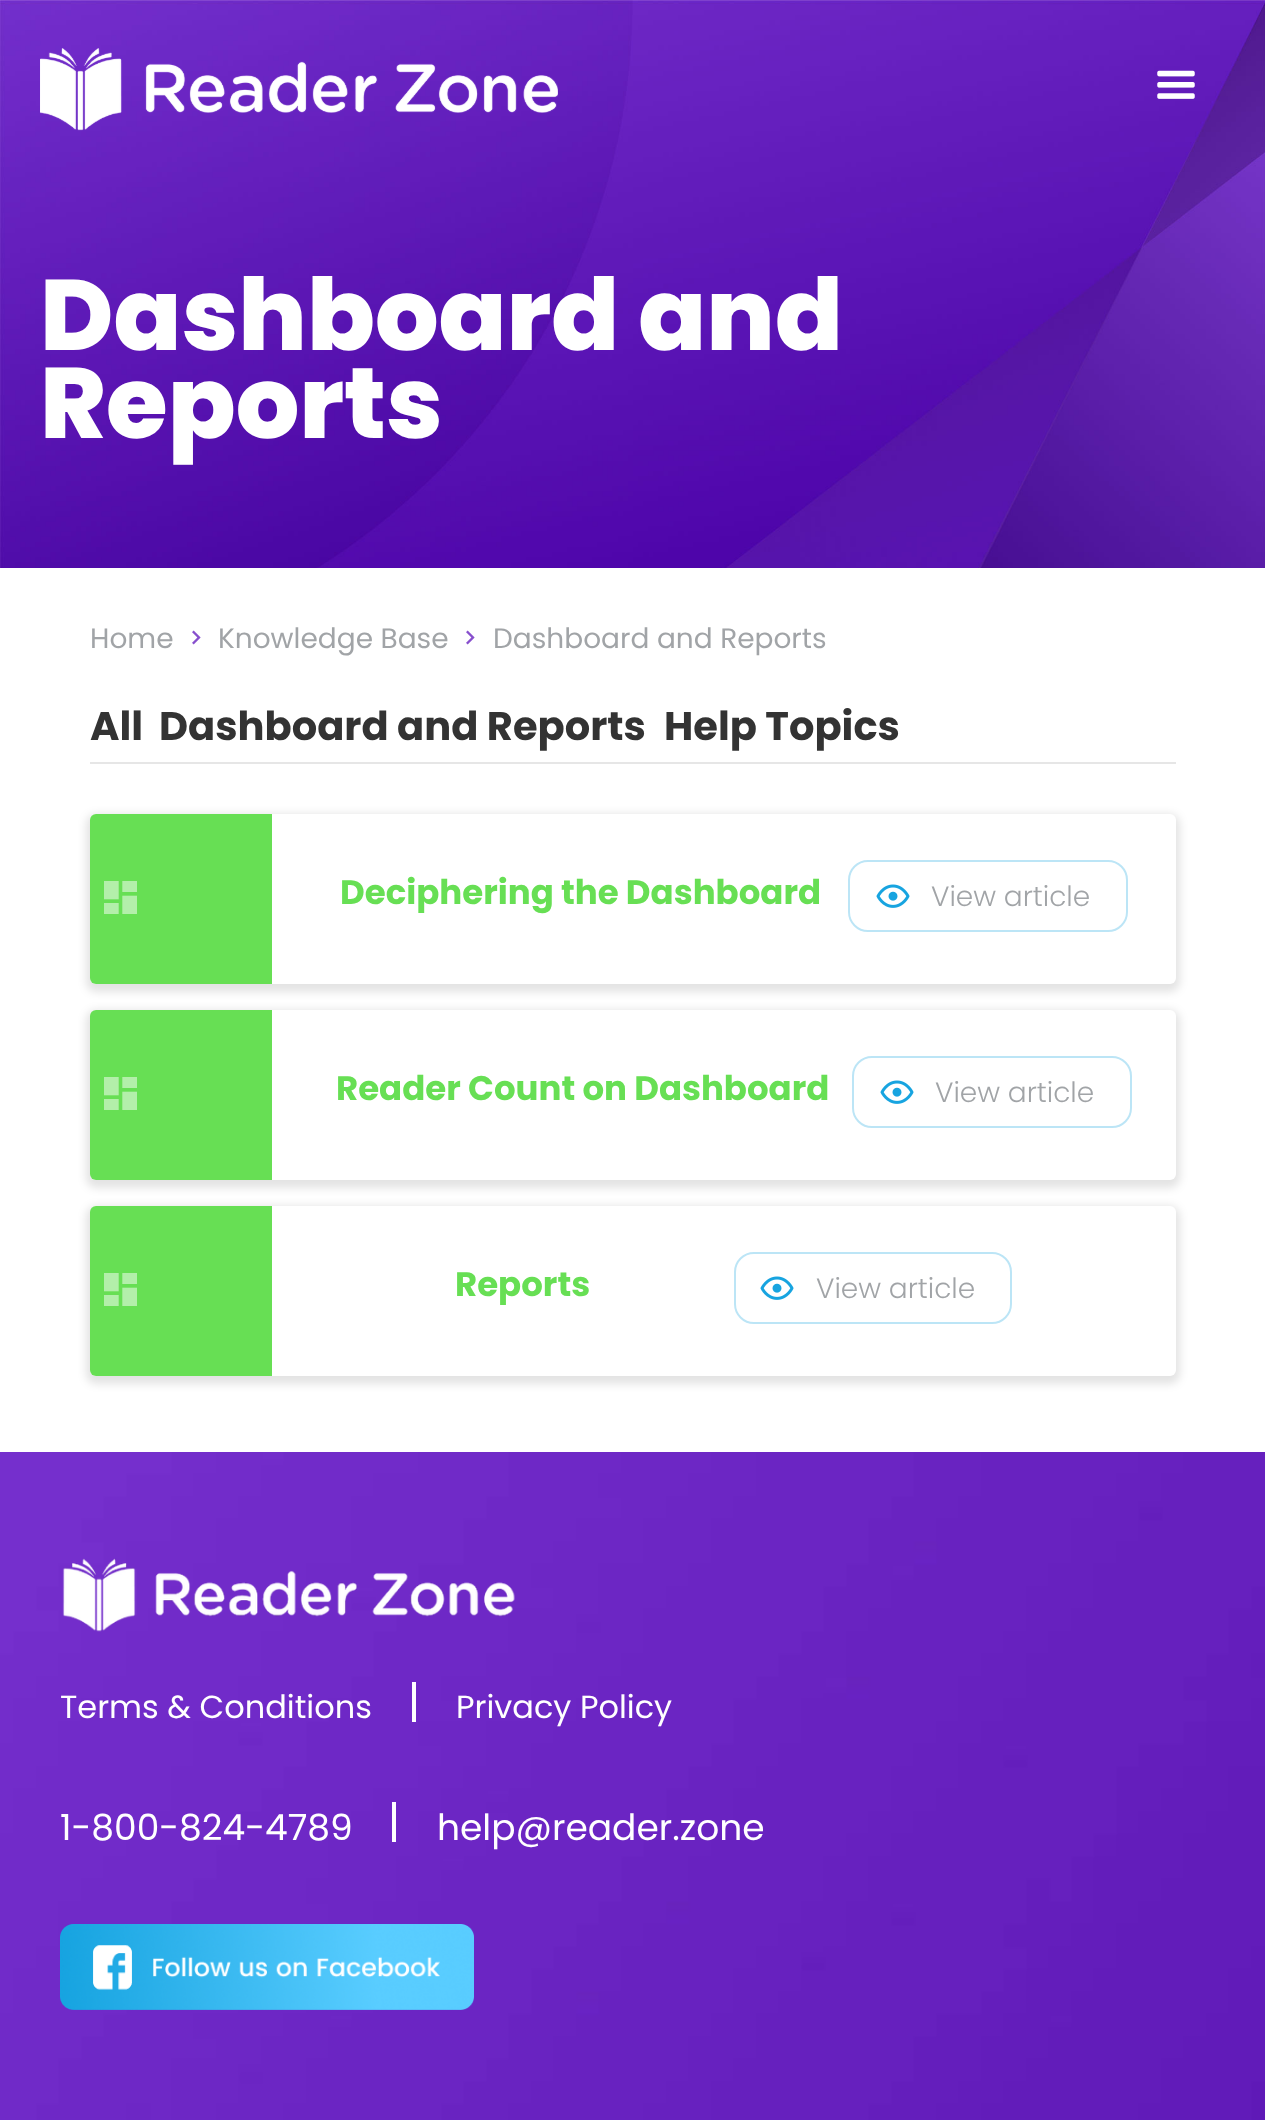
<!DOCTYPE html>
<meta charset="utf-8">
<style>body { margin: 0 } canvas { display: block }</style>
<canvas id="canvas" width="1265" height="2120"></canvas>
<img id="img1" src="images/1.png" hidden>
<img id="img2" src="images/2.png" hidden>
<img id="img3" src="images/3.png" hidden>
<img id="img4" src="images/4.png" hidden>
<img id="img5" src="images/5.png" hidden>
<img id="img6" src="images/6.png" hidden>
<img id="img7" src="images/7.png" hidden>
<img id="img8" src="images/8.png" hidden>
<img id="img9" src="images/9.png" hidden>
<script>
window.onload = function () {
    const canvas = document.getElementById('canvas');
    const context = canvas.getContext('2d');
    context.miterLimit = 4;
    context.fontKerning = 'normal';

    context.fillStyle = 'rgb(255, 255, 255)';
    context.fillRect(0, 0, 1265, 2120);
    context.drawImage(document.getElementById('img1'), 0, 0, 1265, 568);
    context.drawImage(document.getElementById('img2'), 40, 48, 518, 83);
    context.drawImage(document.getElementById('img3'), 1157, 70, 38, 29);
    context.drawImage(document.getElementById('img4'), 192, 630, 9, 15);
    context.drawImage(document.getElementById('img4'), 466, 630, 9, 15);
    context.fillStyle = 'rgb(230, 230, 230)';
    context.fillRect(90, 762, 1086, 2);
    context.fillStyle = 'rgba(0, 0, 0, 0.11)';
    context.filter = 'blur(4px)';
    context.beginPath();
    context.roundRect(86, 814, 1094, 178, 10);
    context.fill();
    context.filter = 'none';
    context.fillStyle = 'rgb(255, 255, 255)';
    context.beginPath();
    context.roundRect(90, 814, 1086, 170, 6);
    context.fill();
    context.fillStyle = 'rgb(103, 223, 84)';
    context.beginPath();
    context.roundRect(90, 814, 182, 170, [6, 0, 0, 6]);
    context.fill();
    context.drawImage(document.getElementById('img5'), 104, 881, 33, 33);
    context.drawImage(document.getElementById('img6'), 876, 884, 34, 24);
    context.beginPath();
    context.roundRect(849, 861, 278, 70, 19);
    context.strokeStyle = 'rgb(188, 229, 246)';
    context.lineWidth = 2;
    context.stroke();
    context.fillStyle = 'rgba(0, 0, 0, 0.11)';
    context.filter = 'blur(4px)';
    context.beginPath();
    context.roundRect(86, 1010, 1094, 178, 10);
    context.fill();
    context.filter = 'none';
    context.fillStyle = 'rgb(255, 255, 255)';
    context.beginPath();
    context.roundRect(90, 1010, 1086, 170, 6);
    context.fill();
    context.fillStyle = 'rgb(103, 223, 84)';
    context.beginPath();
    context.roundRect(90, 1010, 182, 170, [6, 0, 0, 6]);
    context.fill();
    context.drawImage(document.getElementById('img5'), 104, 1077, 33, 33);
    context.drawImage(document.getElementById('img6'), 880, 1080, 34, 24);
    context.beginPath();
    context.roundRect(853, 1057, 278, 70, 19);
    context.stroke();
    context.fillStyle = 'rgba(0, 0, 0, 0.11)';
    context.filter = 'blur(4px)';
    context.beginPath();
    context.roundRect(86, 1206, 1094, 178, 10);
    context.fill();
    context.filter = 'none';
    context.fillStyle = 'rgb(255, 255, 255)';
    context.beginPath();
    context.roundRect(90, 1206, 1086, 170, 6);
    context.fill();
    context.fillStyle = 'rgb(103, 223, 84)';
    context.beginPath();
    context.roundRect(90, 1206, 182, 170, [6, 0, 0, 6]);
    context.fill();
    context.drawImage(document.getElementById('img5'), 104, 1273, 33, 33);
    context.drawImage(document.getElementById('img6'), 760, 1276, 34, 24);
    context.beginPath();
    context.roundRect(735, 1253, 276, 70, 19);
    context.stroke();
    context.drawImage(document.getElementById('img7'), 0, 1452, 1265, 668);
    context.drawImage(document.getElementById('img8'), 62, 1558, 453, 74);
    context.fillStyle = 'rgb(255, 255, 255)';
    context.fillRect(412, 1682, 4, 40);
    context.fillRect(392, 1802, 4, 40);
    context.drawImage(document.getElementById('img9'), 60, 1924, 414, 86);
    context.font = '800 100px Poppins';
    context.fillText('Dashboard and', 40, 350);
    context.fillText('Reports', 40, 438);
    context.font = '28px Poppins';
    context.fillStyle = 'rgb(161, 164, 167)';
    context.fillText('Home', 90, 648);
    context.fillText('Knowledge Base', 218, 648);
    context.fillText('Dashboard and Reports', 493, 648);
    context.font = 'bold 40px Poppins';
    context.fillStyle = 'rgb(51, 51, 51)';
    context.fillText('All', 90, 740);
    context.fillText('Dashboard and Reports', 159, 740);
    context.fillText('Help Topics', 664, 740);
    context.font = 'bold 34px Poppins';
    context.fillStyle = 'rgb(103, 223, 84)';
    context.fillText('Deciphering the Dashboard', 340, 904);
    context.font = '300 28px Poppins';
    context.fillStyle = 'rgb(161, 164, 167)';
    context.fillText('View article', 931, 906);
    context.font = 'bold 34px Poppins';
    context.fillStyle = 'rgb(103, 223, 84)';
    context.fillText('Reader Count on Dashboard', 336, 1100);
    context.font = '300 28px Poppins';
    context.fillStyle = 'rgb(161, 164, 167)';
    context.fillText('View article', 935, 1102);
    context.font = 'bold 34px Poppins';
    context.fillStyle = 'rgb(103, 223, 84)';
    context.fillText('Reports', 455, 1296);
    context.font = '300 28px Poppins';
    context.fillStyle = 'rgb(161, 164, 167)';
    context.fillText('View article', 816, 1298);
    context.font = '32px Poppins';
    context.fillStyle = 'rgb(255, 255, 255)';
    context.fillText('Terms & Conditions', 60, 1718);
    context.fillText('Privacy Policy', 456, 1718);
    context.font = '36px Poppins';
    context.fillText('1-800-824-4789', 60, 1840);
    context.fillText('help@reader.zone', 437, 1840);
};
</script>
